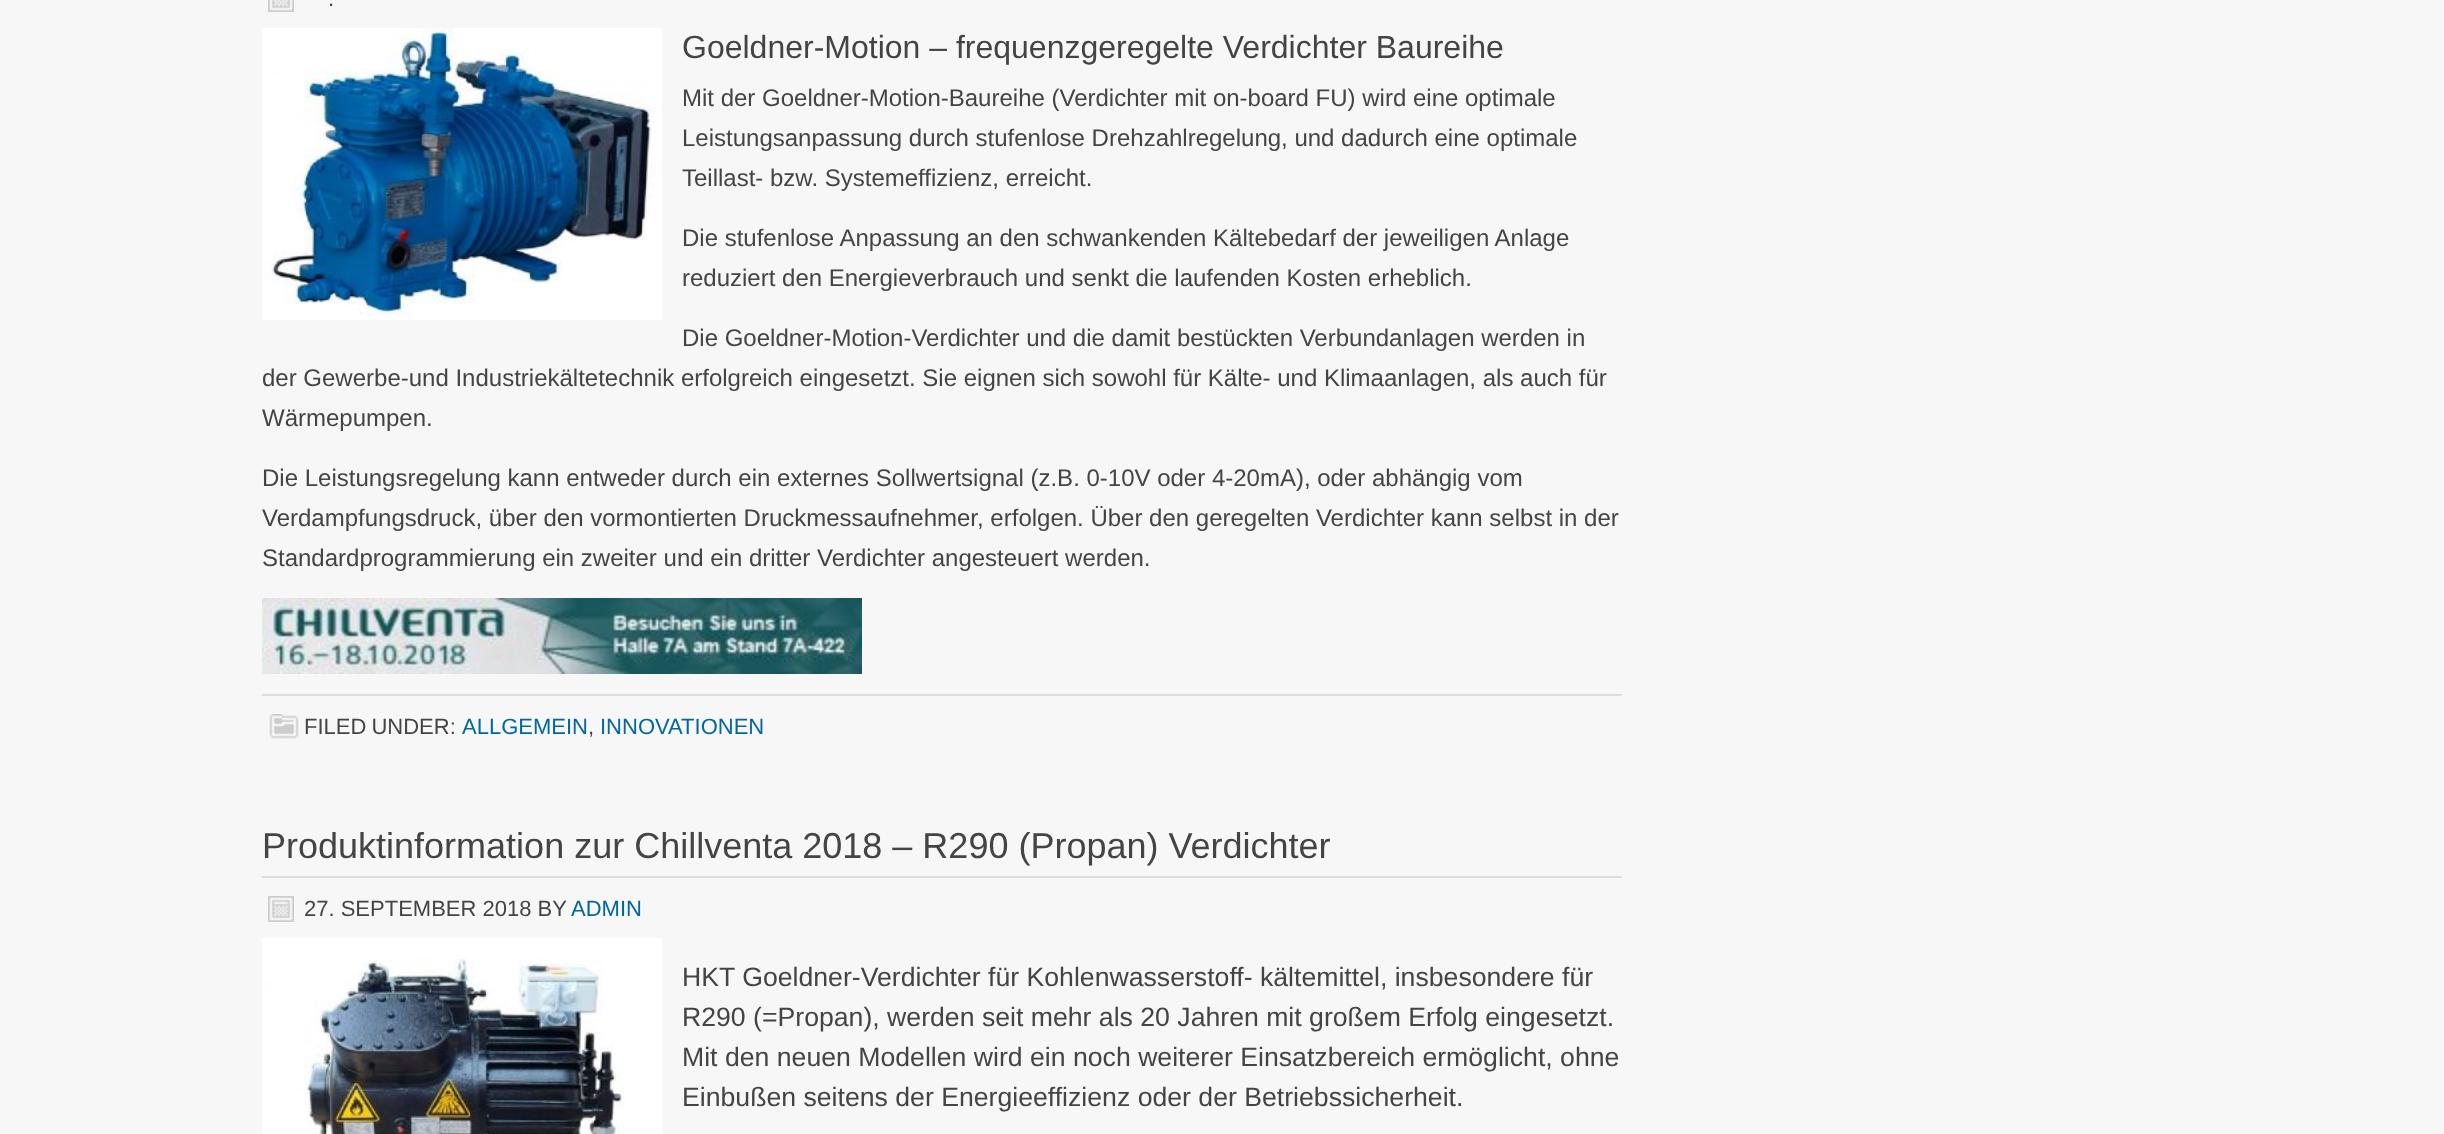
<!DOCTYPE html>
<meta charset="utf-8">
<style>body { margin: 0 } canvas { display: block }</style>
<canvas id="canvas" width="2444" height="1134"></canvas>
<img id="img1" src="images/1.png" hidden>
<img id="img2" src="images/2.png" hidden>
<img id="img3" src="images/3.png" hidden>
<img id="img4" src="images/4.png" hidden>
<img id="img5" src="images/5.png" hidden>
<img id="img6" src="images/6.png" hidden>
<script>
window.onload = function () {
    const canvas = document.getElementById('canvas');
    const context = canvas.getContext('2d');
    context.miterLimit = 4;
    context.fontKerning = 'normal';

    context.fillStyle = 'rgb(247, 247, 247)';
    context.fillRect(0, 0, 2444, 1134);
    context.drawImage(document.getElementById('img1'), 268, 0, 26, 12);
    context.drawImage(document.getElementById('img2'), 262, 28, 400, 292);
    context.drawImage(document.getElementById('img3'), 262, 598, 600, 76);
    context.fillStyle = 'rgb(221, 221, 221)';
    context.fillRect(262, 694, 1360, 2);
    context.drawImage(document.getElementById('img4'), 268, 714, 31, 25);
    context.fillRect(262, 876, 1360, 2);
    context.drawImage(document.getElementById('img5'), 268, 896, 26, 26);
    context.drawImage(document.getElementById('img6'), 262, 938, 400, 196);
    context.font = '22px Liberation Sans';
    context.fillStyle = 'rgb(68, 68, 68)';
    context.fillText('.', 328, 6);
    context.font = '32px Liberation Sans';
    context.fillText('Goeldner-Motion – frequenzgeregelte Verdichter Baureihe', 682, 58);
    context.font = '24px Liberation Sans';
    context.fillText('Mit der Goeldner-Motion-Baureihe (Verdichter mit on-board FU) wird eine optimale', 682, 106);
    context.fillText('Leistungsanpassung durch stufenlose Drehzahlregelung, und dadurch eine optimale', 682, 146);
    context.fillText('Teillast- bzw. Systemeffizienz, erreicht.', 682, 186);
    context.fillText('Die stufenlose Anpassung an den schwankenden Kältebedarf der jeweiligen Anlage', 682, 246);
    context.fillText('reduziert den Energieverbrauch und senkt die laufenden Kosten erheblich.', 682, 286);
    context.fillText('Die Goeldner-Motion-Verdichter und die damit bestückten Verbundanlagen werden in', 682, 346);
    context.fillText('der Gewerbe-und Industriekältetechnik erfolgreich eingesetzt. Sie eignen sich sowohl für Kälte- und Klimaanlagen, als auch für', 262, 386);
    context.fillText('Wärmepumpen.', 262, 426);
    context.fillText('Die Leistungsregelung kann entweder durch ein externes Sollwertsignal (z.B. 0-10V oder 4-20mA), oder abhängig vom', 262, 486);
    context.fillText('Verdampfungsdruck, über den vormontierten Druckmessaufnehmer, erfolgen. Über den geregelten Verdichter kann selbst in der', 262, 526);
    context.fillText('Standardprogrammierung ein zweiter und ein dritter Verdichter angesteuert werden.', 262, 566);
    context.wordSpacing = '-1px';
    context.font = '22px Liberation Sans';
    context.fillText('FILED UNDER:', 304, 734);
    context.wordSpacing = '0px';
    context.fillStyle = 'rgb(0, 103, 162)';
    context.fillText('ALLGEMEIN', 462, 734);
    context.fillStyle = 'rgb(68, 68, 68)';
    context.fillText(',', 588, 734);
    context.fillStyle = 'rgb(0, 103, 162)';
    context.fillText('INNOVATIONEN', 600, 734);
    context.font = '36px Liberation Sans';
    context.fillStyle = 'rgb(68, 68, 68)';
    context.fillText('Produktinformation zur Chillventa 2018 – R290 (Propan) Verdichter', 262, 858);
    context.font = '22px Liberation Sans';
    context.fillText('27. SEPTEMBER 2018 BY', 304, 916);
    context.fillStyle = 'rgb(0, 103, 162)';
    context.fillText('ADMIN', 571, 916);
    context.font = '26.65px Liberation Sans';
    context.fillStyle = 'rgb(68, 68, 68)';
    context.fillText('HKT Goeldner-Verdichter für Kohlenwasserstoff- kältemittel, insbesondere für', 682, 986);
    context.fillText('R290 (=Propan), werden seit mehr als 20 Jahren mit großem Erfolg eingesetzt.', 682, 1026);
    context.fillText('Mit den neuen Modellen wird ein noch weiterer Einsatzbereich ermöglicht, ohne', 682, 1066);
    context.fillText('Einbußen seitens der Energieeffizienz oder der Betriebssicherheit.', 682, 1106);
};
</script>
